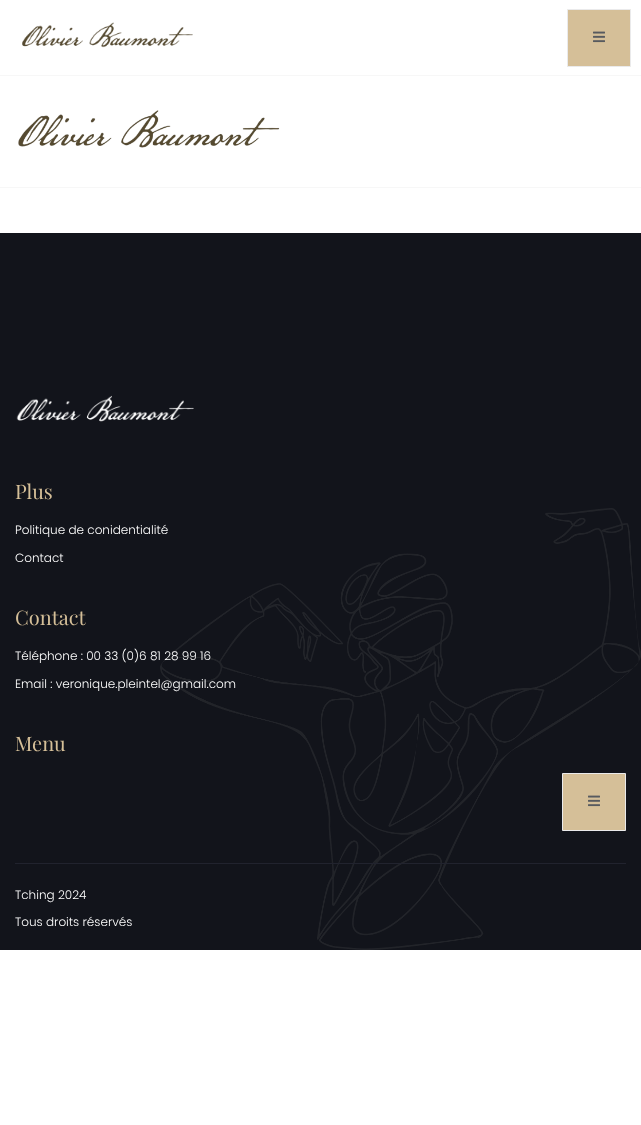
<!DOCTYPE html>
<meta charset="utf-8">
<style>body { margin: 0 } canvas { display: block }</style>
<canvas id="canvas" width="641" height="1125"></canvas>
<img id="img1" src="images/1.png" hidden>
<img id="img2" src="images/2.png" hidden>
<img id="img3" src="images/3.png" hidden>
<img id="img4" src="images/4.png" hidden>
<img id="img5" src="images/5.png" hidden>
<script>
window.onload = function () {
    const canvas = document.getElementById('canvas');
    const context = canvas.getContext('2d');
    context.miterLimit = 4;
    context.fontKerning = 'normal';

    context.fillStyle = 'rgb(255, 255, 255)';
    context.fillRect(0, 0, 641, 1125);
    context.drawImage(document.getElementById('img1'), 22, 22, 171, 26);
    context.fillStyle = 'rgb(213, 191, 152)';
    context.beginPath();
    context.rect(567.5, 9.5, 63, 57);
    context.fill();
    context.strokeStyle = 'rgb(234, 234, 235)';
    context.stroke();
    context.drawImage(document.getElementById('img2'), 593, 31, 12, 12);
    context.fillStyle = 'rgb(247, 247, 247)';
    context.fillRect(0, 75, 641, 1);
    context.drawImage(document.getElementById('img3'), 18, 110, 262, 38);
    context.fillRect(0, 187, 641, 1);
    context.fillStyle = 'rgb(18, 20, 27)';
    context.fillRect(0, 233, 641, 717);
    context.drawImage(document.getElementById('img4'), 16, 395, 178, 27);
    context.drawImage(document.getElementById('img5'), 160, 508, 481, 442);
    context.fillStyle = 'rgb(213, 191, 152)';
    context.beginPath();
    context.rect(562.5, 773.5, 63, 57);
    context.fill();
    context.stroke();
    context.drawImage(document.getElementById('img2'), 588, 795, 12, 12);
    context.fillStyle = 'rgb(33, 35, 46)';
    context.fillRect(15, 863, 611, 1);
    context.font = '20px Playfair Display';
    context.fillStyle = 'rgb(213, 191, 152)';
    context.fillText('Plus', 15, 499);
    context.font = '300 12px Poppins';
    context.fillStyle = 'rgb(255, 255, 255)';
    context.fillText('Politique de conidentialité', 15, 534);
    context.fillText('Contact', 15, 562);
    context.font = '20px Playfair Display';
    context.fillStyle = 'rgb(213, 191, 152)';
    context.fillText('Contact', 15, 625);
    context.font = '300 12px Poppins';
    context.fillStyle = 'rgb(255, 255, 255)';
    context.fillText('Téléphone : 00 33 (0)6 81 28 99 16', 15, 660);
    context.fillText('Email : veronique.pleintel@gmail.com', 15, 688);
    context.font = '20px Playfair Display';
    context.fillStyle = 'rgb(213, 191, 152)';
    context.fillText('Menu', 15, 751);
    context.font = '300 12px Poppins';
    context.fillStyle = 'rgb(255, 255, 255)';
    context.fillText('Tching 2024', 15, 899);
    context.fillText('Tous droits réservés', 15, 926);
};
</script>
